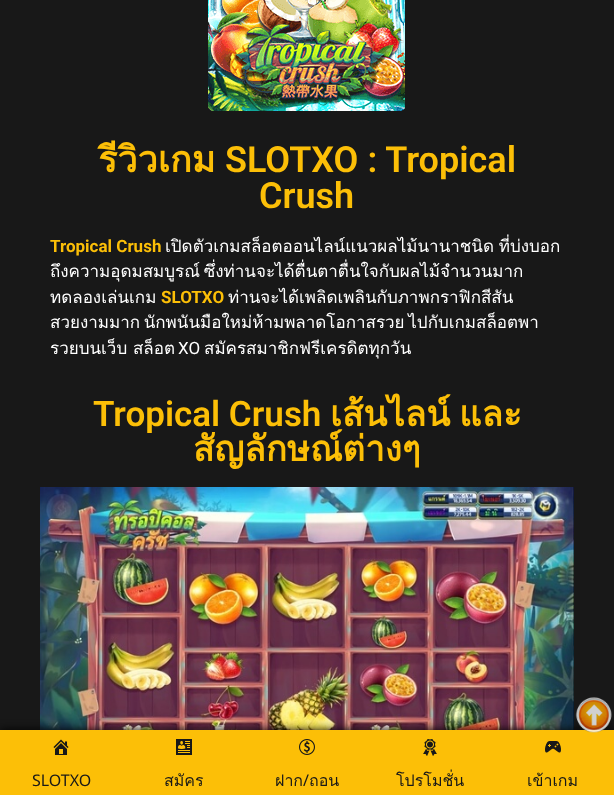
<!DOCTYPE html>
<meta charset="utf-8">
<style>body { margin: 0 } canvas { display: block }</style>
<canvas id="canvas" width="614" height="795"></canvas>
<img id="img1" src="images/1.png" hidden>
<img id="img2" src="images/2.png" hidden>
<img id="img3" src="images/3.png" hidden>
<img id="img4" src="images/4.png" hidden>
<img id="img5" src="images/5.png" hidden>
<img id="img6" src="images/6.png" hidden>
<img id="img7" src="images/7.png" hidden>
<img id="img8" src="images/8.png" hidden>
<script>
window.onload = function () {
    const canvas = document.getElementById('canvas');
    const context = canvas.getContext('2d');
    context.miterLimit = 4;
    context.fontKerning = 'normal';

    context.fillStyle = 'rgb(24, 24, 24)';
    context.fillRect(0, 0, 614, 795);
    context.drawImage(document.getElementById('img1'), 208, 0, 197, 111);
    context.drawImage(document.getElementById('img2'), 40, 487, 534, 243);
    context.fillStyle = 'rgb(0, 0, 0)';
    context.filter = 'blur(5px)';
    context.beginPath();
    context.rect(0, 730, 614, 65);
    context.fill();
    context.filter = 'none';
    context.fillStyle = 'rgb(252, 191, 7)';
    context.fillRect(0, 730, 614, 65);
    context.drawImage(document.getElementById('img3'), 575, 697, 37, 36);
    context.drawImage(document.getElementById('img4'), 53, 739, 16, 16);
    context.drawImage(document.getElementById('img5'), 176, 739, 16, 16);
    context.drawImage(document.getElementById('img6'), 299, 739, 16, 16);
    context.drawImage(document.getElementById('img7'), 423, 739, 14, 17);
    context.drawImage(document.getElementById('img8'), 545, 741, 16, 12);
    context.font = 'bold 36px Loma';
    context.fillText('รีวิวเกม', 98, 172);
    context.font = '600 36px Roboto';
    context.fillText('SLOTXO : Tropical', 225, 172);
    context.fillText('Crush', 259, 208);
    context.font = 'bold 17px Roboto';
    context.fillText('Tropical Crush', 50, 252);
    context.wordSpacing = '-1px';
    context.font = '17px Loma';
    context.fillStyle = 'rgb(255, 255, 255)';
    context.fillText('เปิดตัวเกมสล็อตออนไลน์แนวผลไม้นานาชนิด ที่บ่งบอก', 165, 252);
    context.wordSpacing = '-2px';
    context.fillText('ถึงความอุดมสมบูรณ์ ซึ่งท่านจะได้ตื่นตาตื่นใจกับผลไม้จำนวนมาก', 50, 277);
    context.wordSpacing = '0px';
    context.fillText('ทดลองเล่นเกม', 50, 303);
    context.font = 'bold 17px Roboto';
    context.fillStyle = 'rgb(252, 191, 7)';
    context.fillText('SLOTXO', 161, 303);
    context.font = '17px Loma';
    context.fillStyle = 'rgb(255, 255, 255)';
    context.fillText('ท่านจะได้เพลิดเพลินกับภาพกราฟิกสีสัน', 228, 303);
    context.wordSpacing = '-2px';
    context.fillText('สวยงามมาก นักพนันมือใหม่ห้ามพลาดโอกาสรวย ไปกับเกมสล็อตพา', 50, 328);
    context.wordSpacing = '0px';
    context.fillText('รวยบนเว็บ สล็อต', 50, 354);
    context.font = '17px Roboto';
    context.fillText('XO', 178, 354);
    context.font = '17px Loma';
    context.fillText('สมัครสมาชิกฟรีเครดิตทุกวัน', 204, 354);
    context.font = '600 35px Roboto';
    context.fillStyle = 'rgb(252, 191, 7)';
    context.fillText('Tropical Crush', 93, 426);
    context.font = 'bold 35px Loma';
    context.fillText('เส้นไลน์', 330, 426);
    context.fillText('และ', 459, 426);
    context.fillText('สัญลักษณ์ต่างๆ', 193, 461);
    context.font = '16px Noto Sans';
    context.fillStyle = 'rgb(24, 24, 24)';
    context.fillText('SLOTXO', 32, 786);
    context.font = '16px Loma';
    context.fillText('สมัคร', 164, 786);
    context.fillText('ฝาก', 275, 786);
    context.font = '16px Noto Sans';
    context.fillText('/', 303, 786);
    context.font = '16px Loma';
    context.fillText('ถอน', 309, 786);
    context.fillText('โปรโมชั่น', 396, 786);
    context.fillText('เข้าเกม', 527, 786);
};
</script>
